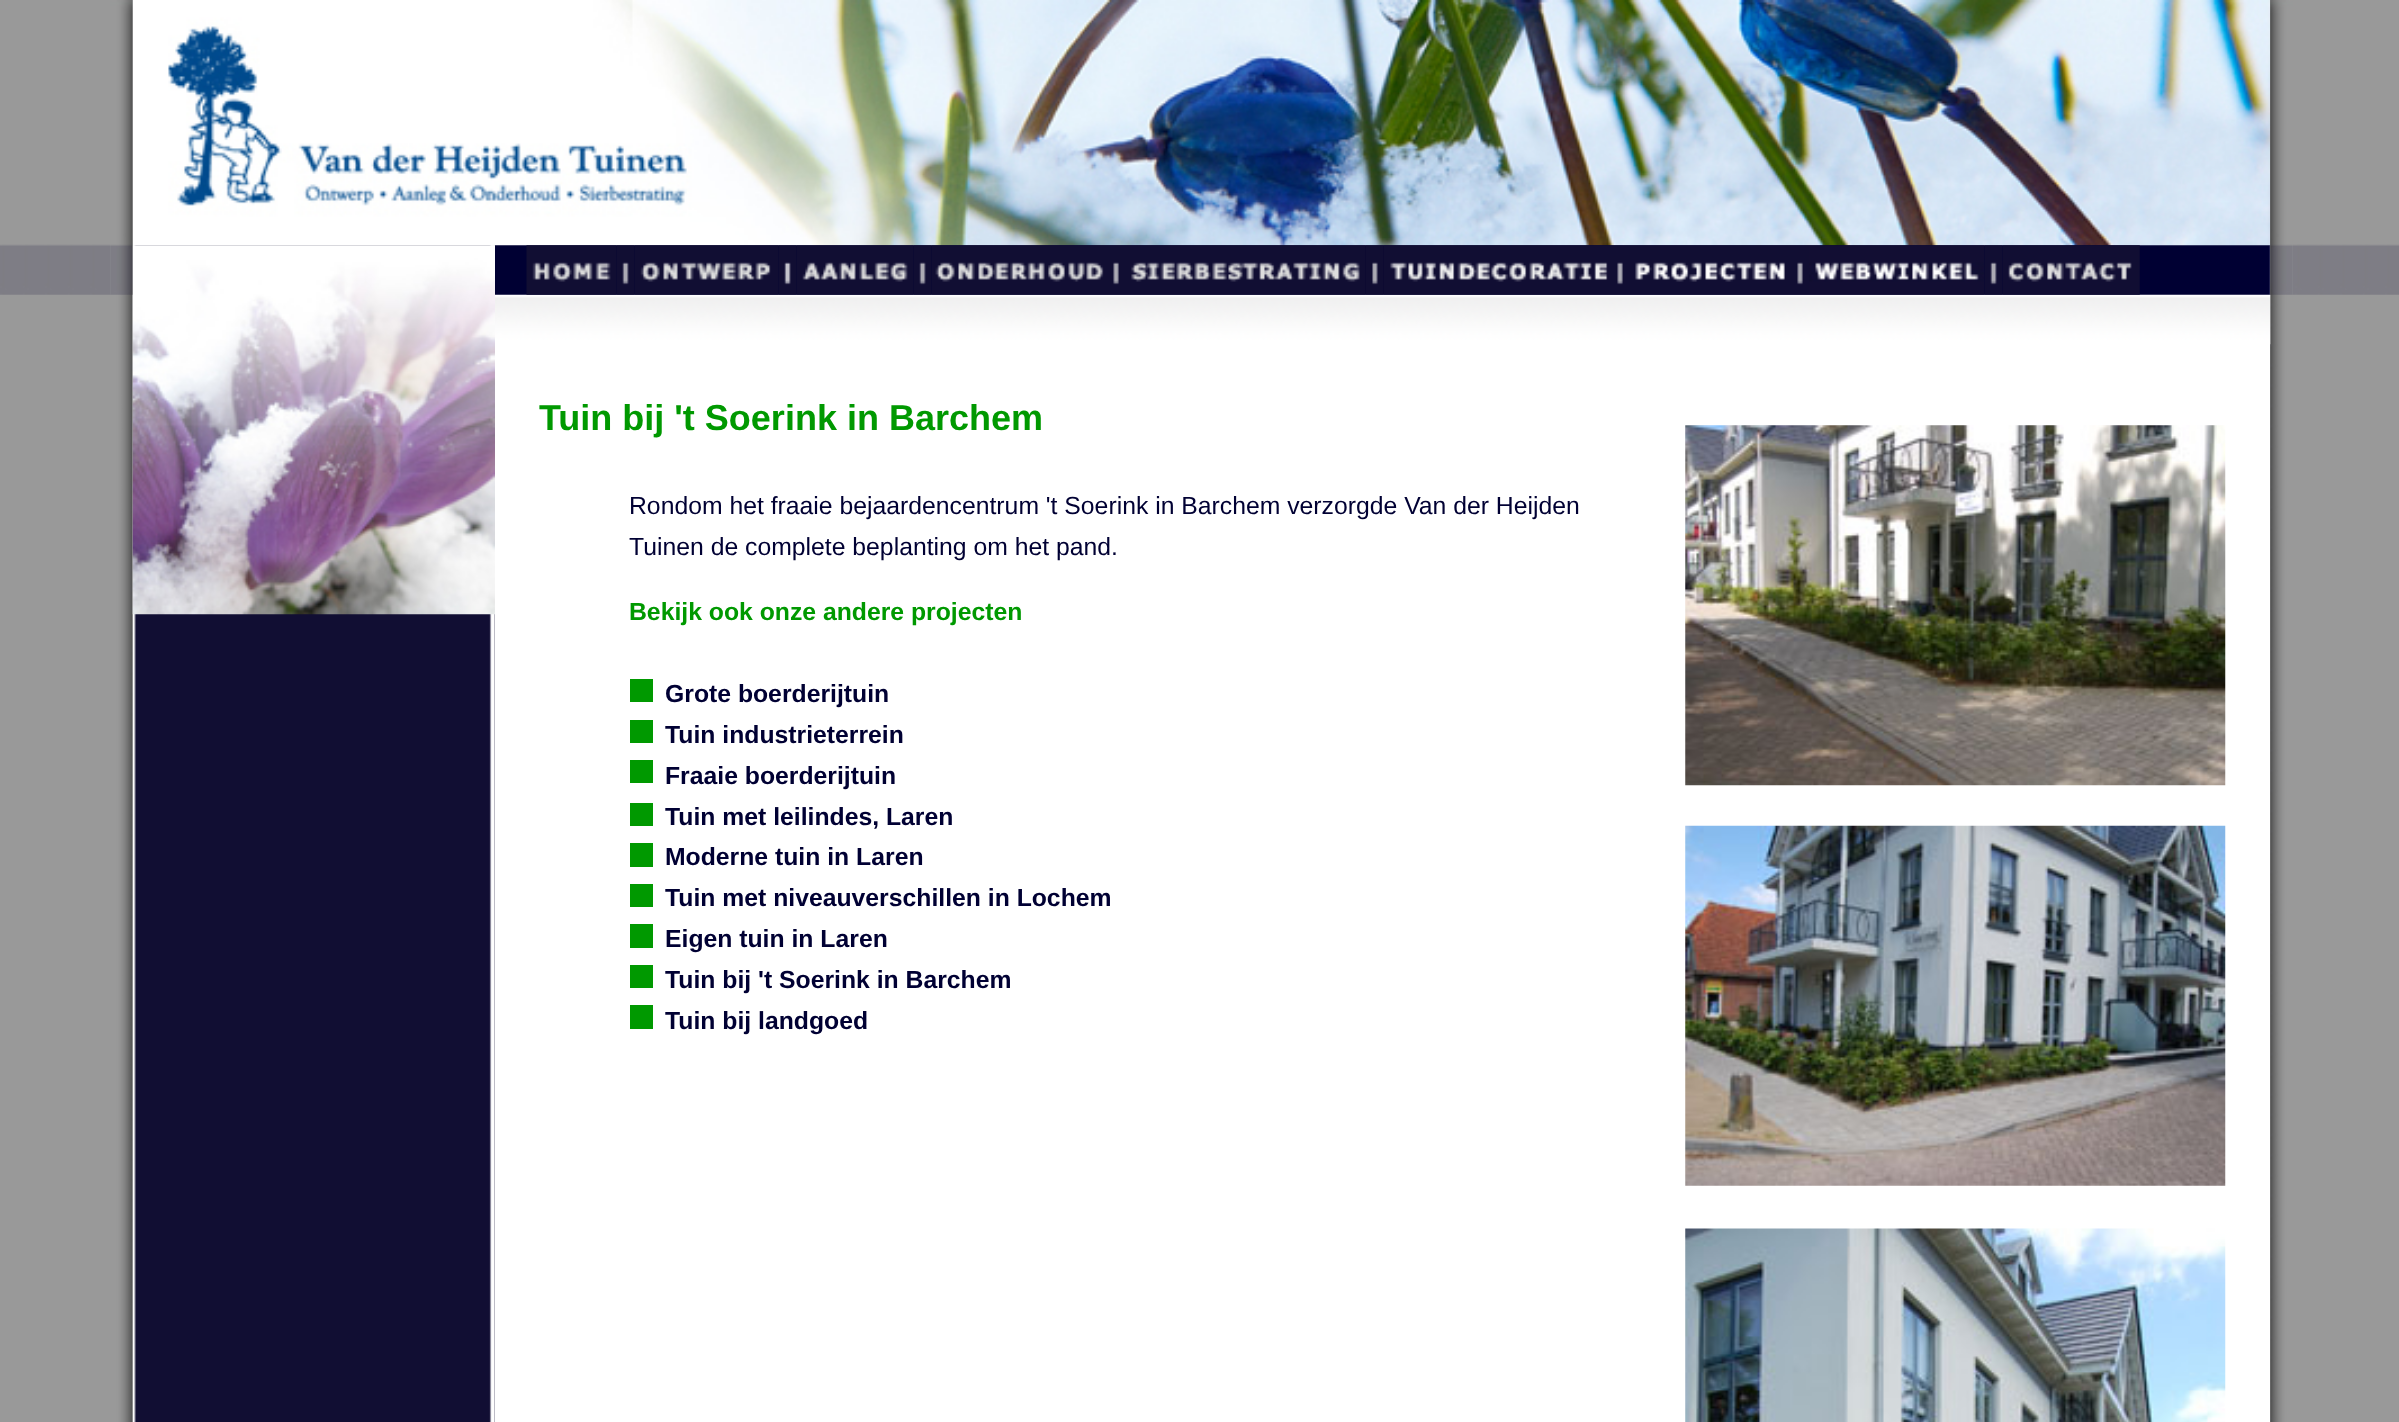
<!DOCTYPE html>
<meta charset="utf-8">
<style>body { margin: 0 } canvas { display: block }</style>
<canvas id="canvas" width="2399" height="1422"></canvas>
<img id="img1" src="images/1.png" hidden>
<img id="img2" src="images/2.png" hidden>
<img id="img3" src="images/7.png" hidden>
<img id="img4" src="images/3.png" hidden>
<img id="img5" src="images/5.png" hidden>
<img id="img6" src="images/9.png" hidden>
<img id="img7" src="images/4.png" hidden>
<img id="img8" src="images/27.png" hidden>
<img id="img9" src="images/6.png" hidden>
<img id="img10" src="images/8.png" hidden>
<img id="img11" src="images/10.png" hidden>
<img id="img12" src="images/11.png" hidden>
<img id="img13" src="images/12.png" hidden>
<img id="img14" src="images/13.png" hidden>
<img id="img15" src="images/14.png" hidden>
<img id="img16" src="images/15.png" hidden>
<img id="img17" src="images/16.png" hidden>
<img id="img18" src="images/17.png" hidden>
<img id="img19" src="images/18.png" hidden>
<img id="img20" src="images/19.png" hidden>
<img id="img21" src="images/20.png" hidden>
<img id="img22" src="images/21.png" hidden>
<img id="img23" src="images/22.png" hidden>
<img id="img24" src="images/23.png" hidden>
<img id="img25" src="images/24.png" hidden>
<img id="img26" src="images/25.png" hidden>
<img id="img27" src="images/26.png" hidden>
<img id="img28" src="images/28.png" hidden>
<img id="img29" src="images/29.png" hidden>
<img id="img30" src="images/30.png" hidden>
<script>
window.onload = function () {
    const canvas = document.getElementById('canvas');
    const context = canvas.getContext('2d');
    context.miterLimit = 4;
    context.fontKerning = 'normal';

    context.fillStyle = 'rgb(153, 153, 153)';
    context.fillRect(0, 0, 2399, 1422);
    context.drawImage(document.getElementById('img1'), 0, 244, 2399, 51);
    context.drawImage(document.getElementById('img2'), 110, 0, 23, 1422);
    context.drawImage(document.getElementById('img3'), 132, 245, 363, 1177);
    context.drawImage(document.getElementById('img4'), 110, 0, 23, 295);
    context.drawImage(document.getElementById('img5'), 2270, 0, 23, 1422);
    context.fillStyle = 'rgb(0, 0, 51)';
    context.fillRect(495, 245, 1775, 50);
    context.drawImage(document.getElementById('img6'), 2269, 245, 2, 50);
    context.drawImage(document.getElementById('img7'), 132, 0, 2139, 246);
    context.fillStyle = 'rgb(255, 255, 255)';
    context.fillRect(495, 344, 1775, 1078);
    context.drawImage(document.getElementById('img8'), 495, 294, 1776, 51);
    context.drawImage(document.getElementById('img9'), 2270, 0, 23, 295);
    context.drawImage(document.getElementById('img10'), 132, 245, 363, 370);
    context.drawImage(document.getElementById('img11'), 526, 245, 91, 50);
    context.drawImage(document.getElementById('img12'), 616, 245, 19, 50);
    context.drawImage(document.getElementById('img13'), 634, 245, 145, 50);
    context.drawImage(document.getElementById('img14'), 778, 245, 19, 50);
    context.drawImage(document.getElementById('img15'), 796, 245, 118, 50);
    context.drawImage(document.getElementById('img16'), 913, 245, 19, 50);
    context.drawImage(document.getElementById('img17'), 931, 245, 176, 50);
    context.drawImage(document.getElementById('img18'), 1107, 245, 18, 50);
    context.drawImage(document.getElementById('img19'), 1125, 245, 241, 50);
    context.drawImage(document.getElementById('img20'), 1365, 245, 19, 50);
    context.drawImage(document.getElementById('img21'), 1383, 245, 228, 50);
    context.drawImage(document.getElementById('img22'), 1611, 245, 18, 50);
    context.drawImage(document.getElementById('img23'), 1629, 245, 162, 50);
    context.drawImage(document.getElementById('img24'), 1791, 245, 18, 50);
    context.drawImage(document.getElementById('img25'), 1809, 245, 176, 50);
    context.drawImage(document.getElementById('img26'), 1984, 245, 19, 50);
    context.drawImage(document.getElementById('img27'), 2002, 245, 138, 50);
    context.fillStyle = 'rgb(0, 153, 0)';
    context.fillRect(630, 679, 23, 23);
    context.fillRect(630, 720, 23, 23);
    context.fillRect(630, 760, 23, 23);
    context.fillRect(630, 803, 23, 23);
    context.fillRect(630, 843, 23, 24);
    context.fillRect(630, 884, 23, 23);
    context.fillRect(630, 924, 23, 24);
    context.fillRect(630, 965, 23, 23);
    context.fillRect(630, 1005, 23, 24);
    context.drawImage(document.getElementById('img28'), 1685, 425, 541, 361);
    context.drawImage(document.getElementById('img29'), 1685, 825, 541, 361);
    context.drawImage(document.getElementById('img30'), 1685, 1228, 541, 194);
    context.font = 'bold 36px Liberation Sans';
    context.fillText('Tuin bij \'t Soerink in Barchem', 539, 430);
    context.font = '24.75px Liberation Sans';
    context.fillStyle = 'rgb(0, 0, 51)';
    context.fillText('Rondom het fraaie bejaardencentrum \'t Soerink in Barchem verzorgde Van der Heijden', 629, 514);
    context.fillText('Tuinen de complete beplanting om het pand.', 629, 555);
    context.font = 'bold 24.75px Liberation Sans';
    context.fillStyle = 'rgb(0, 153, 0)';
    context.fillText('Bekijk ook onze andere projecten', 629, 620);
    context.fillStyle = 'rgb(0, 0, 51)';
    context.fillText('Grote boerderijtuin', 665, 702);
    context.fillText('Tuin industrieterrein', 665, 743);
    context.fillText('Fraaie boerderijtuin', 665, 784);
    context.fillText('Tuin met leilindes, Laren', 665, 825);
    context.fillText('Moderne tuin in Laren', 665, 865);
    context.fillText('Tuin met niveauverschillen in Lochem', 665, 906);
    context.fillText('Eigen tuin in Laren', 665, 947);
    context.fillText('Tuin bij \'t Soerink in Barchem', 665, 988);
    context.fillText('Tuin bij landgoed', 665, 1029);
};
</script>
